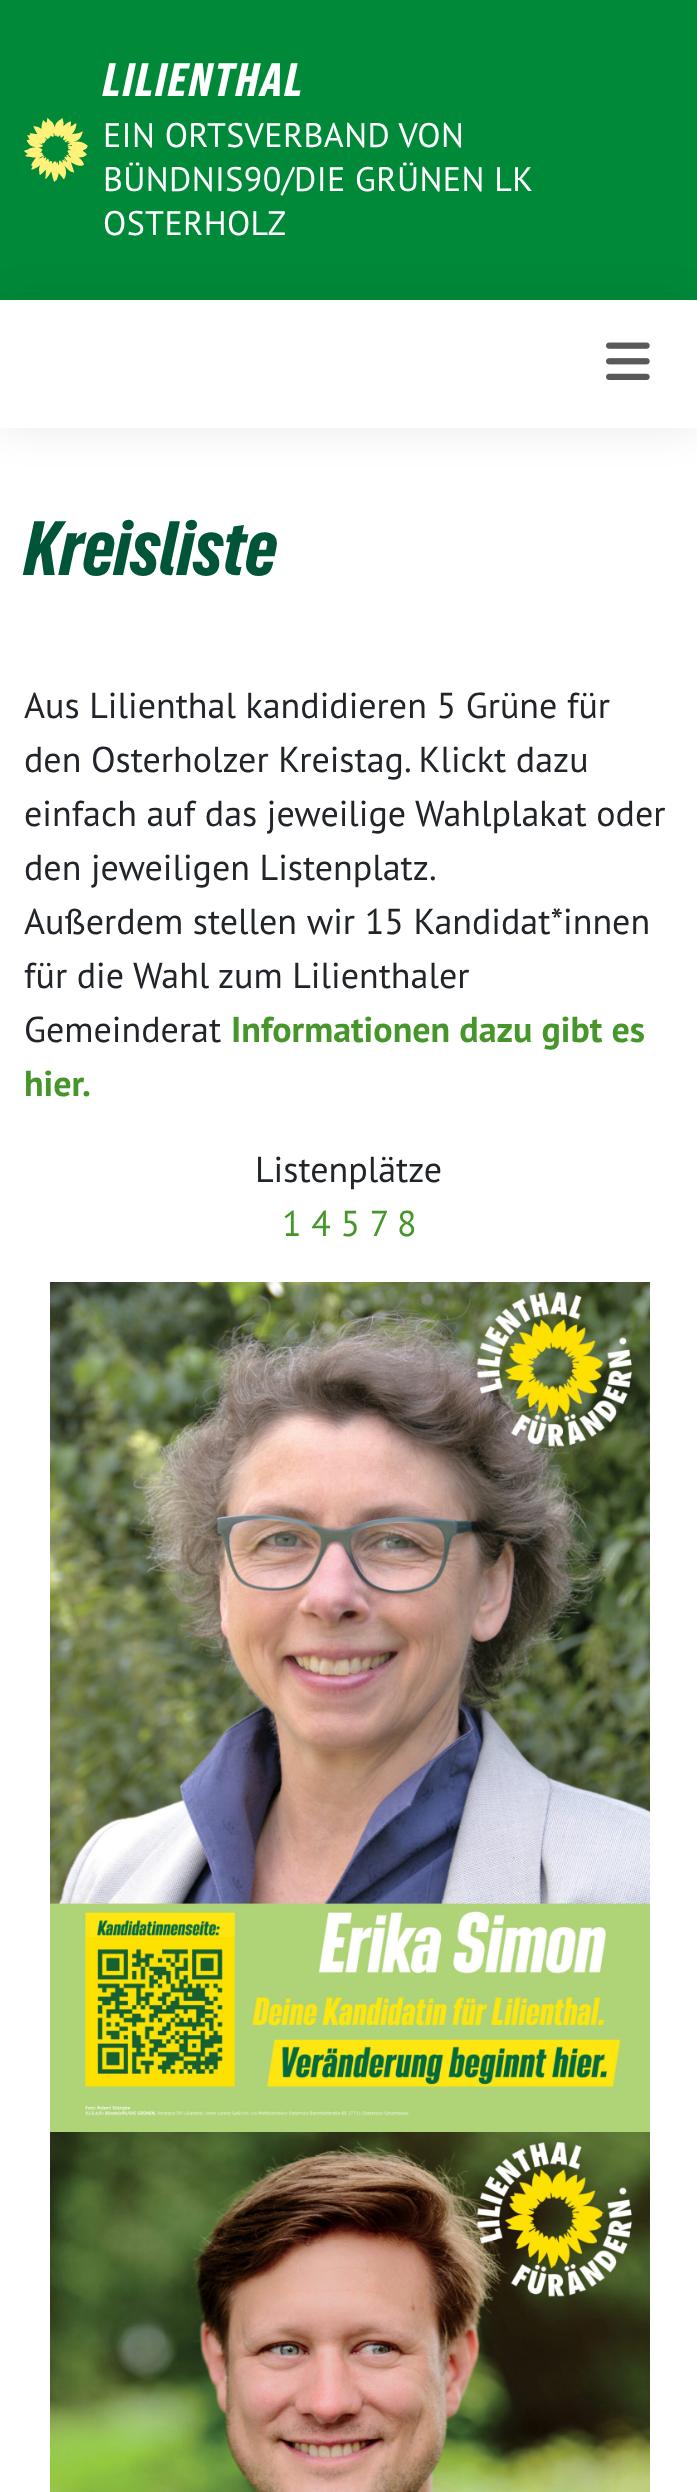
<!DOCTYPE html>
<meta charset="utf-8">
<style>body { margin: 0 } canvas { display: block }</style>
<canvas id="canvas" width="697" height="2492"></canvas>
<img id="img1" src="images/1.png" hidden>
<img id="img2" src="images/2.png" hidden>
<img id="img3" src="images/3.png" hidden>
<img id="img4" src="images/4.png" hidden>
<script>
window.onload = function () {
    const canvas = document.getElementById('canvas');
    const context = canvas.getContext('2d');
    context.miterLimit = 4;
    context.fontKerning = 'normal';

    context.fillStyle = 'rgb(255, 255, 255)';
    context.fillRect(0, 0, 697, 2492);
    context.fillStyle = 'rgb(0, 137, 57)';
    context.fillRect(0, 0, 697, 300);
    context.drawImage(document.getElementById('img1'), 24, 118, 64, 64);
    context.save();
    context.beginPath();
    context.moveTo(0, 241);
    context.lineTo(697, 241);
    context.lineTo(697, 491);
    context.lineTo(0, 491);
    context.closePath();
    context.moveTo(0, 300);
    context.lineTo(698, 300);
    context.lineTo(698, 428);
    context.lineTo(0, 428);
    context.closePath();
    context.clip('evenodd');
    context.fillStyle = 'rgba(0, 0, 0, 0.08)';
    context.filter = 'blur(20px)';
    context.beginPath();
    context.rect(0, 302, 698, 128);
    context.fill();
    context.filter = 'none';
    context.restore();
    context.drawImage(document.getElementById('img2'), 606, 342, 44, 38);
    context.drawImage(document.getElementById('img3'), 50, 1282, 600, 850);
    context.drawImage(document.getElementById('img4'), 50, 2132, 600, 360);
    context.letterSpacing = '2px';
    context.font = '44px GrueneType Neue';
    context.fillStyle = 'rgb(255, 255, 255)';
    context.fillText('LILIENTHAL', 103, 96);
    context.letterSpacing = '0.4px';
    context.font = '34px PT Sans';
    context.fillText('EIN ORTSVERBAND VON', 103, 147);
    context.fillText('BÜNDNIS90/DIE GRÜNEN LK', 103, 191);
    context.fillText('OSTERHOLZ', 103, 235);
    context.letterSpacing = '0px';
    context.font = '72px GrueneType Neue';
    context.fillStyle = 'rgb(0, 84, 55)';
    context.fillText('Kreisliste', 24, 575);
    context.font = '36px PT Sans';
    context.fillStyle = 'rgb(33, 37, 41)';
    context.fillText('Aus Lilienthal kandidieren 5 Grüne für', 24, 718);
    context.fillText('den Osterholzer Kreistag. Klickt dazu', 24, 772);
    context.fillText('einfach auf das jeweilige Wahlplakat oder', 24, 826);
    context.fillText('den jeweiligen Listenplatz.', 24, 880);
    context.fillText('Außerdem stellen wir 15 Kandidat*innen', 24, 934);
    context.fillText('für die Wahl zum Lilienthaler', 24, 988);
    context.fillText('Gemeinderat', 24, 1042);
    context.font = 'bold 36px PT Sans';
    context.fillStyle = 'rgb(70, 150, 43)';
    context.fillText('Informationen dazu gibt es', 231, 1042);
    context.fillText('hier.', 24, 1096);
    context.font = '36px PT Sans';
    context.fillStyle = 'rgb(33, 37, 41)';
    context.fillText('Listenplätze', 255, 1182);
    context.fillStyle = 'rgb(70, 150, 43)';
    context.fillText('1 4 5 7', 282, 1236);
    context.fillText('8', 397, 1236);
};
</script>
